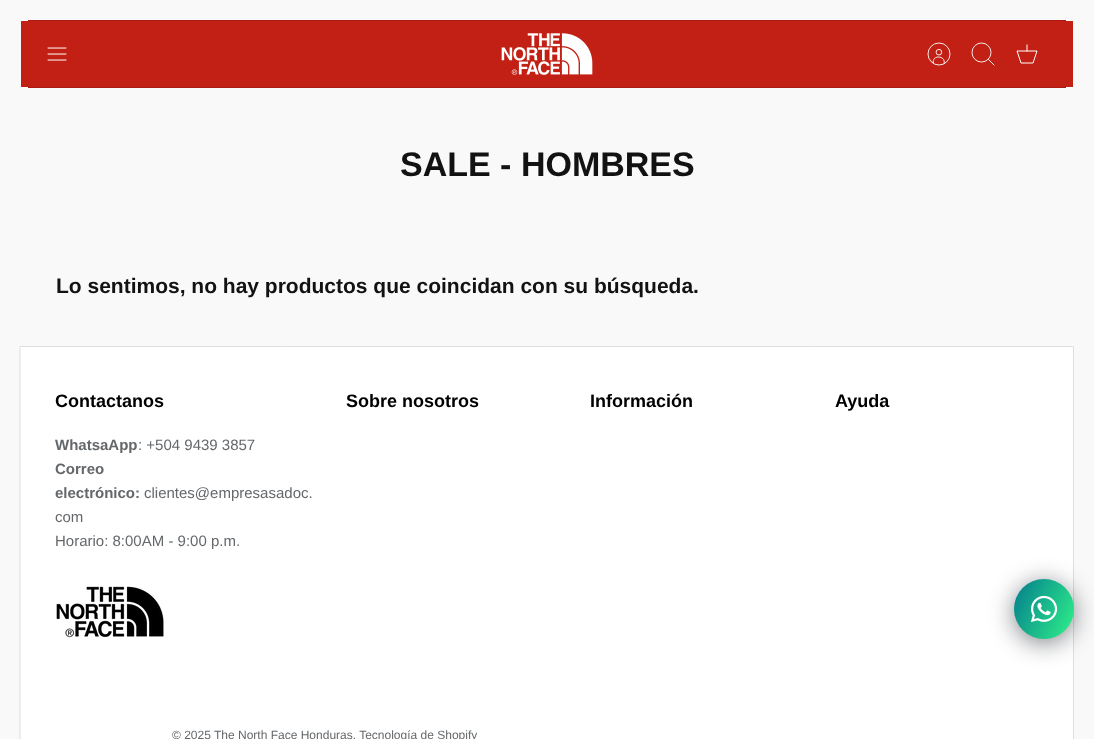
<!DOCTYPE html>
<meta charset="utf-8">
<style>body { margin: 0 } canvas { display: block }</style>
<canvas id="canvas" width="1094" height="739"></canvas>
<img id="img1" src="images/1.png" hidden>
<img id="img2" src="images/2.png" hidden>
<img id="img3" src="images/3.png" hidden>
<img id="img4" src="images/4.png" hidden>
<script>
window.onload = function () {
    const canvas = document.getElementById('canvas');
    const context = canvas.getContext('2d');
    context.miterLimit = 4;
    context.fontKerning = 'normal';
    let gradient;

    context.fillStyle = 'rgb(249, 249, 249)';
    context.fillRect(0, 0, 1094, 739);
    context.strokeStyle = 'rgb(170, 28, 18)';
    context.strokeRect(28.5, 20.5, 1037, 67);
    context.fillStyle = 'rgb(194, 32, 20)';
    context.fillRect(21, 21, 1052, 66);
    context.drawImage(document.getElementById('img1'), 47, 47, 20, 14);
    context.drawImage(document.getElementById('img2'), 501, 33, 92, 42);
    context.beginPath();
    context.moveTo(944, 64);
    context.bezierCurveTo(946.5, 55, 931, 54.5, 933.5, 63.5);
    context.strokeStyle = 'rgb(255, 255, 255)';
    context.lineWidth = 0.9;
    context.stroke();
    context.beginPath();
    context.arc(938.9, 52.2, 2.8, 0, 2 * Math.PI);
    context.stroke();
    context.beginPath();
    context.arc(939, 54, 11, 0, 2 * Math.PI);
    context.stroke();
    context.beginPath();
    context.arc(981.5, 52.5, 9.5, 0, 2 * Math.PI);
    context.stroke();
    context.beginPath();
    context.moveTo(988.5, 59.5);
    context.lineTo(994, 65);
    context.lineCap = 'square';
    context.stroke();
    context.beginPath();
    context.moveTo(1017, 51);
    context.lineTo(1037, 51);
    context.lineTo(1033, 63);
    context.lineTo(1021, 63);
    context.closePath();
    context.lineWidth = 1;
    context.lineCap = 'butt';
    context.stroke();
    context.beginPath();
    context.moveTo(1027, 51);
    context.lineTo(1027, 45);
    context.lineCap = 'square';
    context.stroke();
    context.fillStyle = 'rgb(255, 255, 255)';
    context.beginPath();
    context.rect(20.5, 346.5, 1053, 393);
    context.fill();
    context.strokeStyle = 'rgb(223, 223, 223)';
    context.stroke();
    context.drawImage(document.getElementById('img3'), 56, 586, 108, 52);
    context.fillStyle = 'rgba(2, 6, 16, 0.5)';
    context.filter = 'blur(12px)';
    context.beginPath();
    context.roundRect(1014, 583, 60, 60, 30);
    context.fill();
    context.filter = 'none';
    gradient = context.createLinearGradient(1008, 592, 1080, 626);
    gradient.addColorStop(0, 'rgb(4, 124, 141)');
    gradient.addColorStop(1, 'rgb(47, 242, 137)');
    context.fillStyle = gradient;
    context.beginPath();
    context.arc(1044, 609, 30, 0, 2 * Math.PI);
    context.fill();
    context.drawImage(document.getElementById('img4'), 1031, 595, 27, 27);
    context.font = 'bold 34px Liberation Sans';
    context.fillStyle = 'rgb(18, 18, 18)';
    context.fillText('SALE - HOMBRES', 400, 176);
    context.font = 'bold 21px Liberation Sans';
    context.fillText('Lo sentimos, no hay productos que coincidan con su búsqueda.', 56, 293);
    context.font = 'bold 18px Liberation Sans';
    context.fillStyle = 'rgb(0, 0, 0)';
    context.fillText('Contactanos', 55, 407);
    context.font = 'bold 15px Liberation Sans';
    context.fillStyle = 'rgb(100, 104, 107)';
    context.fillText('WhatsaApp', 55, 450);
    context.font = '15px Liberation Sans';
    context.fillText(': +504 9439 3857', 138, 450);
    context.font = 'bold 15px Liberation Sans';
    context.fillText('Correo', 55, 474);
    context.fillText('electrónico:', 55, 498);
    context.font = '15px Liberation Sans';
    context.fillText('clientes@empresasadoc.', 144, 498);
    context.fillText('com', 55, 522);
    context.fillText('Horario: 8:00AM - 9:00 p.m.', 55, 546);
    context.font = 'bold 18px Liberation Sans';
    context.fillStyle = 'rgb(0, 0, 0)';
    context.fillText('Sobre nosotros', 346, 407);
    context.fillText('Información', 590, 407);
    context.fillText('Ayuda', 835, 407);
    context.font = '12px Liberation Sans';
    context.fillStyle = 'rgb(100, 104, 107)';
    context.fillText('© 2025 The North Face Honduras. Tecnología de Shopify', 172, 739);
};
</script>
